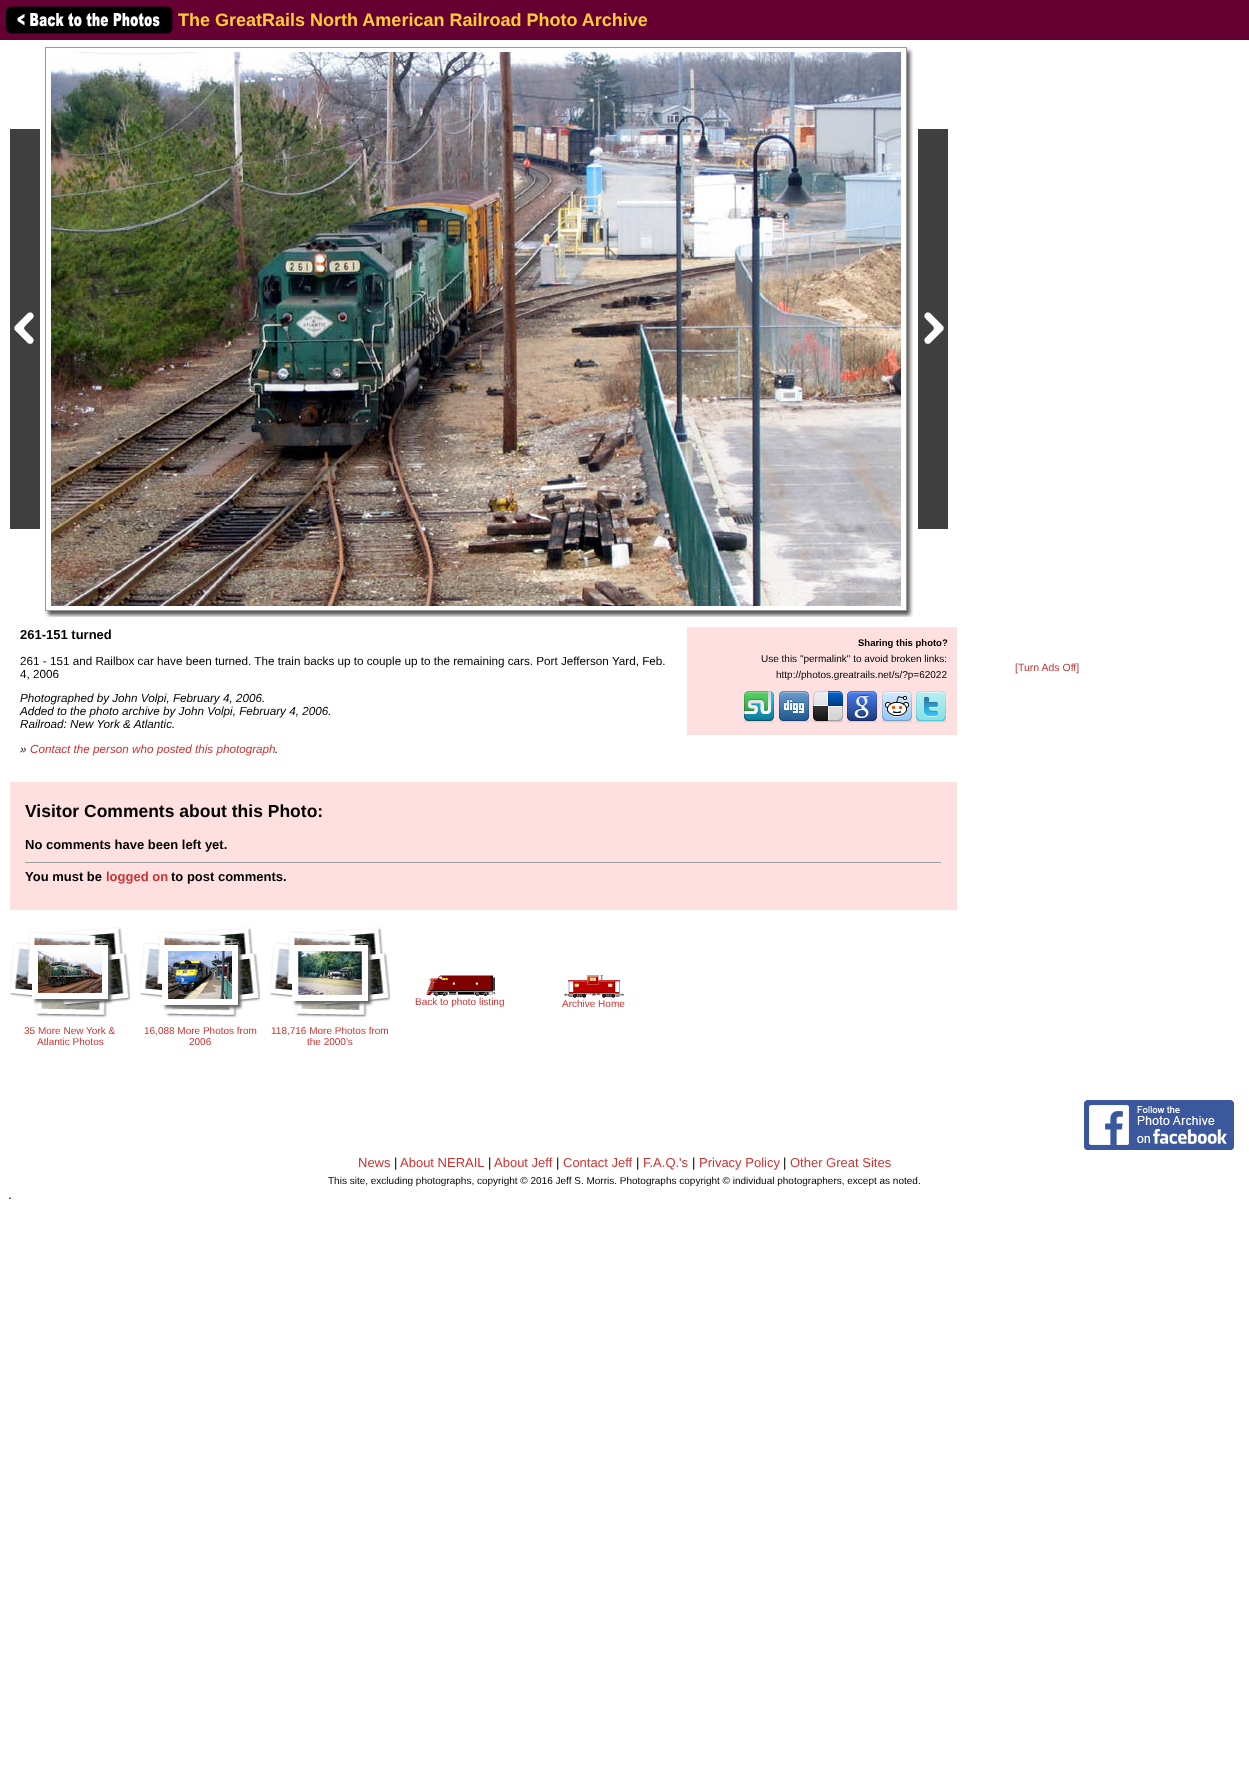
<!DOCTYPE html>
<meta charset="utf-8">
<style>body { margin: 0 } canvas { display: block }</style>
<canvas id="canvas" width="1249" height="1787"></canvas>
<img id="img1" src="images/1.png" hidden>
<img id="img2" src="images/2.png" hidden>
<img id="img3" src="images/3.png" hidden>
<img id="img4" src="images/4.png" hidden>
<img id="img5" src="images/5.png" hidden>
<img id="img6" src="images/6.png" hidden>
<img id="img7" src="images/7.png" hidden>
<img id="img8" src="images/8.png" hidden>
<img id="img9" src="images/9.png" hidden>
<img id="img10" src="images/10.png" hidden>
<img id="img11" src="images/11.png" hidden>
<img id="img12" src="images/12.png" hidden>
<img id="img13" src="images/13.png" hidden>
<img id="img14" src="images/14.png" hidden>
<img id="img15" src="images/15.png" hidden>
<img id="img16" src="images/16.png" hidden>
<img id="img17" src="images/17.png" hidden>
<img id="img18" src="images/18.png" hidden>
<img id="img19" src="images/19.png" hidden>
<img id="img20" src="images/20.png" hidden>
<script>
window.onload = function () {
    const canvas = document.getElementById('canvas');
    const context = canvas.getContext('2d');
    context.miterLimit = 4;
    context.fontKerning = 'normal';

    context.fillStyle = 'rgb(255, 255, 255)';
    context.fillRect(0, 0, 1249, 1787);
    context.fillStyle = 'rgb(102, 0, 51)';
    context.fillRect(0, 0, 1249, 40);
    context.drawImage(document.getElementById('img1'), 6, 6, 167, 28);
    context.drawImage(document.getElementById('img2'), 10, 129, 30, 400);
    context.strokeStyle = 'rgb(154, 154, 154)';
    context.strokeRect(45.5, 47.5, 861, 563);
    context.drawImage(document.getElementById('img3'), 51, 52, 850, 554);
    context.drawImage(document.getElementById('img4'), 907, 47, 6, 564);
    context.drawImage(document.getElementById('img5'), 918, 129, 30, 400);
    context.drawImage(document.getElementById('img6'), 45, 611, 862, 6);
    context.drawImage(document.getElementById('img7'), 907, 611, 6, 6);
    context.fillStyle = 'rgb(255, 224, 224)';
    context.fillRect(687, 627, 270, 108);
    context.drawImage(document.getElementById('img8'), 744, 691, 30, 32);
    context.drawImage(document.getElementById('img9'), 779, 691, 30, 32);
    context.drawImage(document.getElementById('img10'), 812, 691, 32, 32);
    context.drawImage(document.getElementById('img11'), 847, 691, 30, 32);
    context.drawImage(document.getElementById('img12'), 882, 691, 30, 32);
    context.drawImage(document.getElementById('img13'), 916, 691, 30, 32);
    context.fillRect(10, 782, 947, 128);
    context.fillStyle = 'rgb(159, 159, 159)';
    context.fillRect(25, 862, 917, 1);
    context.fillStyle = 'rgb(238, 238, 238)';
    context.fillRect(941, 862, 1, 1);
    context.drawImage(document.getElementById('img14'), 426, 975, 69, 21);
    context.drawImage(document.getElementById('img15'), 564, 975, 60, 23);
    context.drawImage(document.getElementById('img16'), 10, 927, 120, 91);
    context.fillStyle = 'rgb(102, 102, 102)';
    context.filter = 'blur(1.5px)';
    context.beginPath();
    context.rect(35, 948, 76, 54);
    context.fill();
    context.filter = 'none';
    context.fillStyle = 'rgb(255, 255, 255)';
    context.fillRect(32, 945, 76, 54);
    context.drawImage(document.getElementById('img17'), 38, 951, 64, 42);
    context.drawImage(document.getElementById('img16'), 140, 927, 120, 91);
    context.fillStyle = 'rgb(102, 102, 102)';
    context.filter = 'blur(1.5px)';
    context.beginPath();
    context.rect(165, 948, 76, 60);
    context.fill();
    context.filter = 'none';
    context.fillStyle = 'rgb(255, 255, 255)';
    context.fillRect(162, 945, 76, 60);
    context.drawImage(document.getElementById('img18'), 168, 951, 64, 48);
    context.drawImage(document.getElementById('img16'), 270, 927, 120, 91);
    context.fillStyle = 'rgb(102, 102, 102)';
    context.filter = 'blur(1.5px)';
    context.beginPath();
    context.rect(295, 948, 76, 56);
    context.fill();
    context.filter = 'none';
    context.fillStyle = 'rgb(255, 255, 255)';
    context.fillRect(292, 945, 76, 56);
    context.drawImage(document.getElementById('img19'), 298, 951, 64, 44);
    context.drawImage(document.getElementById('img20'), 1084, 1100, 150, 50);
    context.font = 'bold 18px Liberation Sans';
    context.fillStyle = 'rgb(255, 204, 51)';
    context.fillText('The GreatRails North American Railroad Photo Archive', 178, 26);
    context.font = 'bold 13px Liberation Sans';
    context.fillStyle = 'rgb(0, 0, 0)';
    context.fillText('261-151 turned', 20, 639);
    context.font = '11.7px Liberation Sans';
    context.fillText('261 - 151 and Railbox car have been turned. The train backs up to couple up to the remaining cars. Port Jefferson Yard, Feb.', 20, 665);
    context.fillText('4, 2006', 20, 678);
    context.font = 'italic 11.7px Liberation Sans';
    context.fillText('Photographed by John Volpi, February 4, 2006.', 20, 702);
    context.fillText('Added to the photo archive by John Volpi, February 4, 2006.', 20, 715);
    context.fillText('Railroad: New York & Atlantic.', 20, 728);
    context.fillText('»', 20, 753);
    context.fillStyle = 'rgb(204, 51, 51)';
    context.fillText('Contact the person who posted this photograph', 30, 753);
    context.fillStyle = 'rgb(0, 0, 0)';
    context.fillText('.', 275, 753);
    context.font = 'bold 9.5px Liberation Sans';
    context.fillText('Sharing this photo?', 858, 646);
    context.font = '10px Liberation Sans';
    context.fillText('Use this "permalink" to avoid broken links:', 761, 662);
    context.fillText('http://photos.greatrails.net/s/?p=62022', 776, 678);
    context.font = '10.5px Liberation Sans';
    context.fillStyle = 'rgb(204, 51, 51)';
    context.fillText('[Turn Ads Off]', 1015, 671);
    context.font = 'bold 17.5px Liberation Sans';
    context.fillStyle = 'rgb(0, 0, 0)';
    context.fillText('Visitor Comments about this Photo:', 25, 817);
    context.font = 'bold 13px Liberation Sans';
    context.fillText('No comments have been left yet.', 25, 849);
    context.fillText('You must be', 25, 881);
    context.fillStyle = 'rgb(204, 51, 51)';
    context.fillText('logged on', 106, 881);
    context.fillStyle = 'rgb(0, 0, 0)';
    context.fillText('to post comments.', 171, 881);
    context.font = '10px Liberation Sans';
    context.fillStyle = 'rgb(204, 51, 51)';
    context.fillText('Back to photo listing', 415, 1005);
    context.fillText('Archive Home', 562, 1007);
    context.fillText('35 More New York &', 24, 1034);
    context.fillText('Atlantic Photos', 37, 1045);
    context.fillText('16,088 More Photos from', 144, 1034);
    context.fillText('2006', 189, 1045);
    context.fillText('118,716 More Photos from', 271, 1034);
    context.fillText('the 2000\'s', 307, 1045);
    context.font = '13px Liberation Sans';
    context.fillText('News', 358, 1167);
    context.fillStyle = 'rgb(0, 0, 0)';
    context.fillText('|', 394, 1167);
    context.fillStyle = 'rgb(204, 51, 51)';
    context.fillText('About NERAIL', 400, 1167);
    context.fillStyle = 'rgb(0, 0, 0)';
    context.fillText('|', 488, 1167);
    context.fillStyle = 'rgb(204, 51, 51)';
    context.fillText('About Jeff', 494, 1167);
    context.fillStyle = 'rgb(0, 0, 0)';
    context.fillText('|', 556, 1167);
    context.fillStyle = 'rgb(204, 51, 51)';
    context.fillText('Contact Jeff', 563, 1167);
    context.fillStyle = 'rgb(0, 0, 0)';
    context.fillText('|', 636, 1167);
    context.fillStyle = 'rgb(204, 51, 51)';
    context.fillText('F.A.Q.\'s', 643, 1167);
    context.fillStyle = 'rgb(0, 0, 0)';
    context.fillText('|', 692, 1167);
    context.fillStyle = 'rgb(204, 51, 51)';
    context.fillText('Privacy Policy', 699, 1167);
    context.fillStyle = 'rgb(0, 0, 0)';
    context.fillText('|', 783, 1167);
    context.fillStyle = 'rgb(204, 51, 51)';
    context.fillText('Other Great Sites', 790, 1167);
    context.font = '10px Liberation Sans';
    context.fillStyle = 'rgb(0, 0, 0)';
    context.fillText('This site, excluding photographs, copyright © 2016 Jeff S. Morris. Photographs copyright © individual photographers, except as noted.', 328, 1184);
    context.font = '14px Liberation Sans';
    context.fillText('.', 8, 1199);
};
</script>
